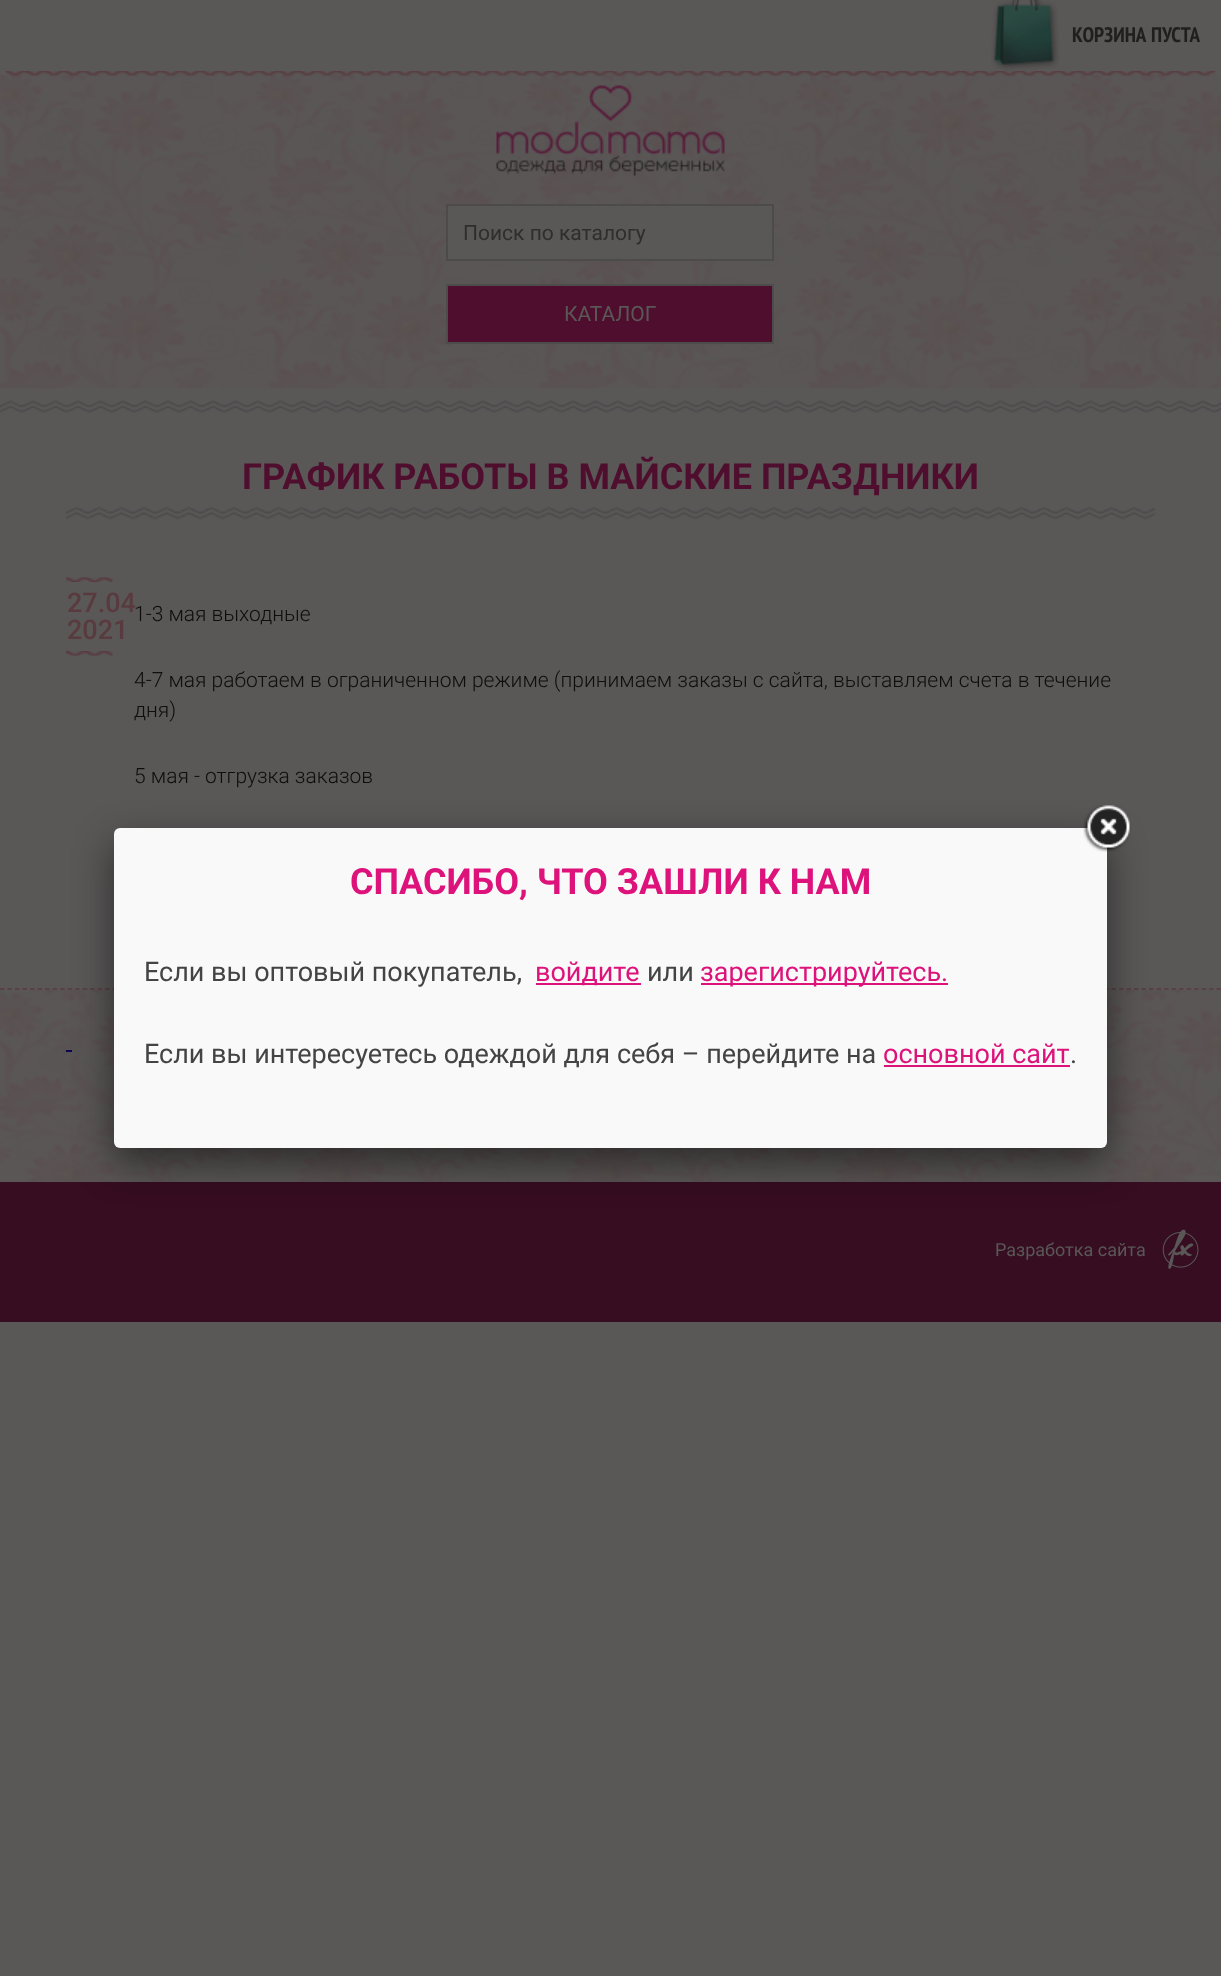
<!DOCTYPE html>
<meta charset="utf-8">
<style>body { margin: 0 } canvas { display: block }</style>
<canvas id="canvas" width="1221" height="1976"></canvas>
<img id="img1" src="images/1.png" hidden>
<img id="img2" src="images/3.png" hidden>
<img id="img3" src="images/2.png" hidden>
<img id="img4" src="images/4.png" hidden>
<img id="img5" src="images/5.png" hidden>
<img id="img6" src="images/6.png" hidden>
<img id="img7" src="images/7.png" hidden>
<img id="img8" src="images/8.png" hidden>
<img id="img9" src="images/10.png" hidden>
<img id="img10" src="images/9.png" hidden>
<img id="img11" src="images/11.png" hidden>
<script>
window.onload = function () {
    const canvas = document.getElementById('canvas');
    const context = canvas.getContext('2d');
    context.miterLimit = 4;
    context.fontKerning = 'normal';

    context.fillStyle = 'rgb(90, 87, 87)';
    context.fillRect(0, 0, 1221, 1976);
    context.drawImage(document.getElementById('img1'), 991, 0, 68, 71);
    context.drawImage(document.getElementById('img2'), 0, 75, 1221, 314);
    context.drawImage(document.getElementById('img3'), 6, 71, 1209, 5);
    context.drawImage(document.getElementById('img4'), 496, 85, 229, 91);
    context.beginPath();
    context.rect(447, 205, 326, 55);
    context.fill();
    context.strokeStyle = 'rgb(77, 74, 75)';
    context.lineWidth = 2;
    context.stroke();
    context.fillStyle = 'rgb(80, 14, 46)';
    context.beginPath();
    context.rect(447, 285, 326, 58);
    context.fill();
    context.strokeStyle = 'rgb(78, 75, 75)';
    context.stroke();
    context.drawImage(document.getElementById('img5'), 0, 388, 1221, 25);
    context.drawImage(document.getElementById('img6'), 66, 506, 1089, 14);
    context.drawImage(document.getElementById('img7'), 66, 577, 47, 5);
    context.drawImage(document.getElementById('img8'), 66, 651, 47, 5);
    context.drawImage(document.getElementById('img9'), 0, 990, 1221, 192);
    context.beginPath();
    context.moveTo(0, 989);
    context.lineTo(1221, 989);
    context.strokeStyle = 'rgb(89, 59, 63)';
    context.lineWidth = 1.5;
    context.setLineDash([4.5, 3.01]);
    context.stroke();
    context.fillStyle = 'rgb(11, 8, 82)';
    context.fillRect(66, 1050, 6, 2);
    context.fillStyle = 'rgb(54, 13, 33)';
    context.fillRect(0, 1182, 1221, 140);
    context.fillStyle = 'rgba(0, 0, 0, 0.5)';
    context.filter = 'blur(19px)';
    context.beginPath();
    context.roundRect(114, 843, 993, 320, 6);
    context.fill();
    context.filter = 'none';
    context.fillStyle = 'rgb(249, 249, 249)';
    context.beginPath();
    context.roundRect(114, 828, 993, 320, 6);
    context.fill();
    context.drawImage(document.getElementById('img10'), 1083, 805, 48, 47);
    context.fillStyle = 'rgb(221, 19, 123)';
    context.fillRect(536, 983, 105, 2);
    context.fillRect(701, 983, 247, 2);
    context.fillRect(884, 1065, 186, 2);
    context.drawImage(document.getElementById('img11'), 1162, 1229, 37, 40);
    context.wordSpacing = '1px';
    context.font = 'bold 21px PT Sans Narrow';
    context.fillStyle = 'rgb(32, 30, 30)';
    context.fillText('КОРЗИНА ПУСТА', 1072, 42);
    context.wordSpacing = '0px';
    context.font = '21px Roboto';
    context.fillStyle = 'rgb(47, 45, 45)';
    context.fillText('Поиск по каталогу', 463, 240);
    context.fillStyle = 'rgb(90, 87, 87)';
    context.fillText('КАТАЛОГ', 564, 321);
    context.font = 'bold 36px Roboto';
    context.fillStyle = 'rgb(80, 14, 46)';
    context.fillText('ГРАФИК РАБОТЫ В МАЙСКИЕ ПРАЗДНИКИ', 242, 489);
    context.font = '500 27px Roboto';
    context.fillStyle = 'rgb(89, 59, 63)';
    context.fillText('27.04', 67, 612);
    context.fillText('2021', 67, 639);
    context.font = '300 21px Roboto';
    context.fillStyle = 'rgb(16, 13, 13)';
    context.fillText('1-3 мая выходные', 134, 621);
    context.fillText('4-7 мая работаем в ограниченном режиме (принимаем заказы с сайта, выставляем счета в течение', 134, 687);
    context.fillText('дня)', 134, 717);
    context.fillText('5 мая - отгрузка заказов', 134, 783);
    context.font = 'bold 36px Roboto';
    context.fillStyle = 'rgb(221, 19, 123)';
    context.fillText('СПАСИБО, ЧТО ЗАШЛИ К НАМ', 350, 894);
    context.font = '27px Roboto';
    context.fillStyle = 'rgb(68, 68, 68)';
    context.fillText('Если вы оптовый покупатель,', 144, 981);
    context.fillStyle = 'rgb(221, 19, 123)';
    context.fillText('войдите', 535, 981);
    context.fillStyle = 'rgb(68, 68, 68)';
    context.fillText('или', 647, 981);
    context.fillStyle = 'rgb(221, 19, 123)';
    context.fillText('зарегистрируйтесь.', 700, 981);
    context.fillStyle = 'rgb(68, 68, 68)';
    context.fillText('Если вы интересуетесь одеждой для себя – перейдите на', 144, 1063);
    context.fillStyle = 'rgb(221, 19, 123)';
    context.fillText('основной сайт', 883, 1063);
    context.fillStyle = 'rgb(68, 68, 68)';
    context.fillText('.', 1070, 1063);
    context.font = '18px Roboto';
    context.fillStyle = 'rgb(90, 87, 87)';
    context.fillText('Разработка сайта', 995, 1256);
};
</script>
